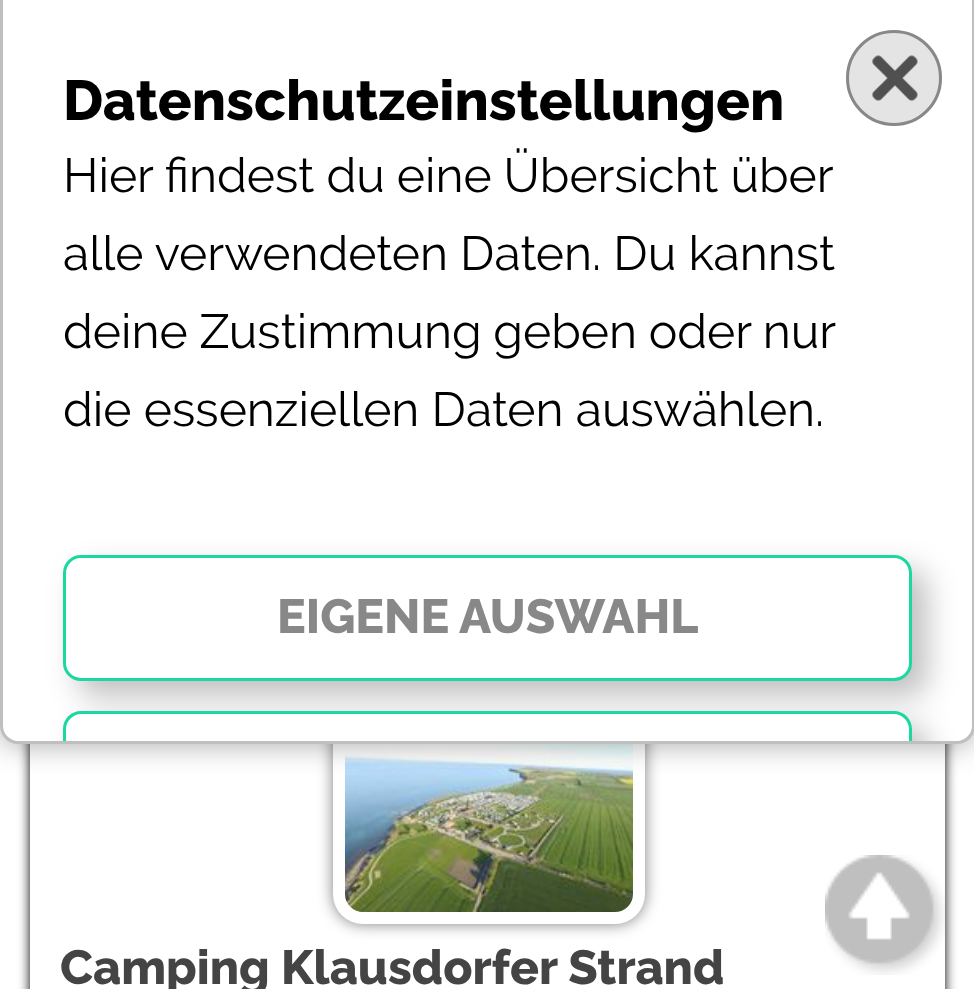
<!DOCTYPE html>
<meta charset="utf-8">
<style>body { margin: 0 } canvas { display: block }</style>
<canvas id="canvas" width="974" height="989"></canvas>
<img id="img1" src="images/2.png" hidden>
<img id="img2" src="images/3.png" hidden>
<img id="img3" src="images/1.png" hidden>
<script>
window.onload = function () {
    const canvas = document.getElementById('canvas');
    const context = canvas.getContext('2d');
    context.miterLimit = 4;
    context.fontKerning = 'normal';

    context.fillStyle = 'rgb(255, 255, 255)';
    context.fillRect(0, 0, 974, 989);
    context.save();
    context.beginPath();
    context.moveTo(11, 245);
    context.lineTo(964, 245);
    context.lineTo(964, 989);
    context.lineTo(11, 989);
    context.closePath();
    context.moveTo(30, 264);
    context.lineTo(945, 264);
    context.lineTo(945, 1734);
    context.bezierCurveTo(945, 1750.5, 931.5, 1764, 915, 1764);
    context.lineTo(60, 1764);
    context.bezierCurveTo(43.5, 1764, 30, 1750.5, 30, 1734);
    context.closePath();
    context.clip('evenodd');
    context.fillStyle = 'rgb(0, 0, 0)';
    context.filter = 'blur(6px)';
    context.beginPath();
    context.roundRect(30, 264, 915, 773, 30);
    context.fill();
    context.filter = 'none';
    context.restore();
    context.fillStyle = 'rgba(0, 0, 0, 0.5)';
    context.filter = 'blur(7.5px)';
    context.beginPath();
    context.roundRect(333, 684, 312, 240, 30);
    context.fill();
    context.filter = 'none';
    context.fillStyle = 'rgb(255, 255, 255)';
    context.beginPath();
    context.roundRect(333, 684, 312, 240, 30);
    context.fill();
    context.drawImage(document.getElementById('img1'), 345, 744, 288, 168);
    context.fillStyle = 'rgba(0, 0, 0, 0.35)';
    context.filter = 'blur(15px)';
    context.beginPath();
    context.roundRect(0, 0, 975, 744, 18);
    context.fill();
    context.filter = 'none';
    context.fillStyle = 'rgb(255, 255, 255)';
    context.beginPath();
    context.moveTo(0, 0);
    context.lineTo(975, 0);
    context.lineTo(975, 726);
    context.bezierCurveTo(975, 736, 967, 744, 957, 744);
    context.lineTo(18, 744);
    context.bezierCurveTo(8, 744, 0, 736, 0, 726);
    context.closePath();
    context.fill();
    context.fillStyle = 'rgba(0, 0, 0, 0.25)';
    context.beginPath();
    context.moveTo(0, 0);
    context.lineTo(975, 0);
    context.lineTo(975, 726);
    context.bezierCurveTo(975, 736, 967, 744, 957, 744);
    context.lineTo(18, 744);
    context.bezierCurveTo(8, 744, 0, 736, 0, 726);
    context.closePath();
    context.moveTo(3, 0);
    context.lineTo(972, 0);
    context.lineTo(972, 726);
    context.bezierCurveTo(972, 734, 965, 741, 957, 741);
    context.lineTo(18, 741);
    context.bezierCurveTo(10, 741, 3, 734, 3, 726);
    context.closePath();
    context.fill('evenodd');
    context.filter = 'blur(15px)';
    context.beginPath();
    context.roundRect(78, 570, 849, 126, 18);
    context.fill();
    context.filter = 'none';
    context.fillStyle = 'rgb(255, 255, 255)';
    context.beginPath();
    context.roundRect(64.5, 556.5, 846, 123, 16.5);
    context.fill();
    context.strokeStyle = 'rgb(27, 216, 158)';
    context.lineWidth = 3;
    context.stroke();
    context.drawImage(document.getElementById('img2'), 825, 855, 120, 120);
    context.save();
    context.beginPath();
    context.moveTo(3, 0);
    context.lineTo(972, 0);
    context.lineTo(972, 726);
    context.bezierCurveTo(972, 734.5, 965.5, 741, 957, 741);
    context.lineTo(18, 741);
    context.bezierCurveTo(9.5, 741, 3, 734.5, 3, 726);
    context.closePath();
    context.clip();
    context.fillStyle = 'rgba(0, 0, 0, 0.25)';
    context.filter = 'blur(15px)';
    context.beginPath();
    context.roundRect(78, 726, 849, 126, 18);
    context.fill();
    context.filter = 'none';
    context.restore();
    context.beginPath();
    context.roundRect(63, 711, 849, 30, [18, 18, 0, 0]);
    context.fill();
    context.fillStyle = 'rgb(27, 216, 158)';
    context.beginPath();
    context.moveTo(81, 711);
    context.bezierCurveTo(71, 711, 63, 719, 63, 729);
    context.lineTo(63, 741);
    context.lineTo(66, 741);
    context.lineTo(66, 729);
    context.bezierCurveTo(66, 721, 73, 714, 81, 714);
    context.lineTo(894, 714);
    context.bezierCurveTo(902, 714, 909, 721, 909, 729);
    context.lineTo(909, 741);
    context.lineTo(912, 741);
    context.lineTo(912, 729);
    context.bezierCurveTo(912, 719, 904, 711, 894, 711);
    context.closePath();
    context.fill();
    context.fillStyle = 'rgb(228, 228, 228)';
    context.beginPath();
    context.arc(894, 78, 48, 0, 2 * Math.PI);
    context.fill();
    context.drawImage(document.getElementById('img3'), 872, 55, 46, 46);
    context.beginPath();
    context.arc(894, 78, 46.5, 0, 2 * Math.PI);
    context.strokeStyle = 'rgb(136, 136, 136)';
    context.stroke();
    context.font = '800 56.2px Raleway';
    context.fillStyle = 'rgb(0, 0, 0)';
    context.fillText('Datenschutzeinstellungen', 63, 120);
    context.wordSpacing = '-0.25px';
    context.font = '48px Raleway';
    context.fillText('Hier findest du eine Übersicht über', 63, 192);
    context.wordSpacing = '0px';
    context.fillText('alle verwendeten Daten. Du kannst', 63, 270);
    context.wordSpacing = '-0.5px';
    context.fillText('deine Zustimmung geben oder nur', 63, 348);
    context.wordSpacing = '0px';
    context.fillText('die essenziellen Daten auswählen.', 63, 426);
    context.font = '800 48px Raleway';
    context.fillStyle = 'rgb(136, 136, 136)';
    context.fillText('EIGENE AUSWAHL', 277, 633);
    context.fillStyle = 'rgb(68, 68, 68)';
    context.fillText('Camping Klausdorfer Strand', 60, 984);
};
</script>
